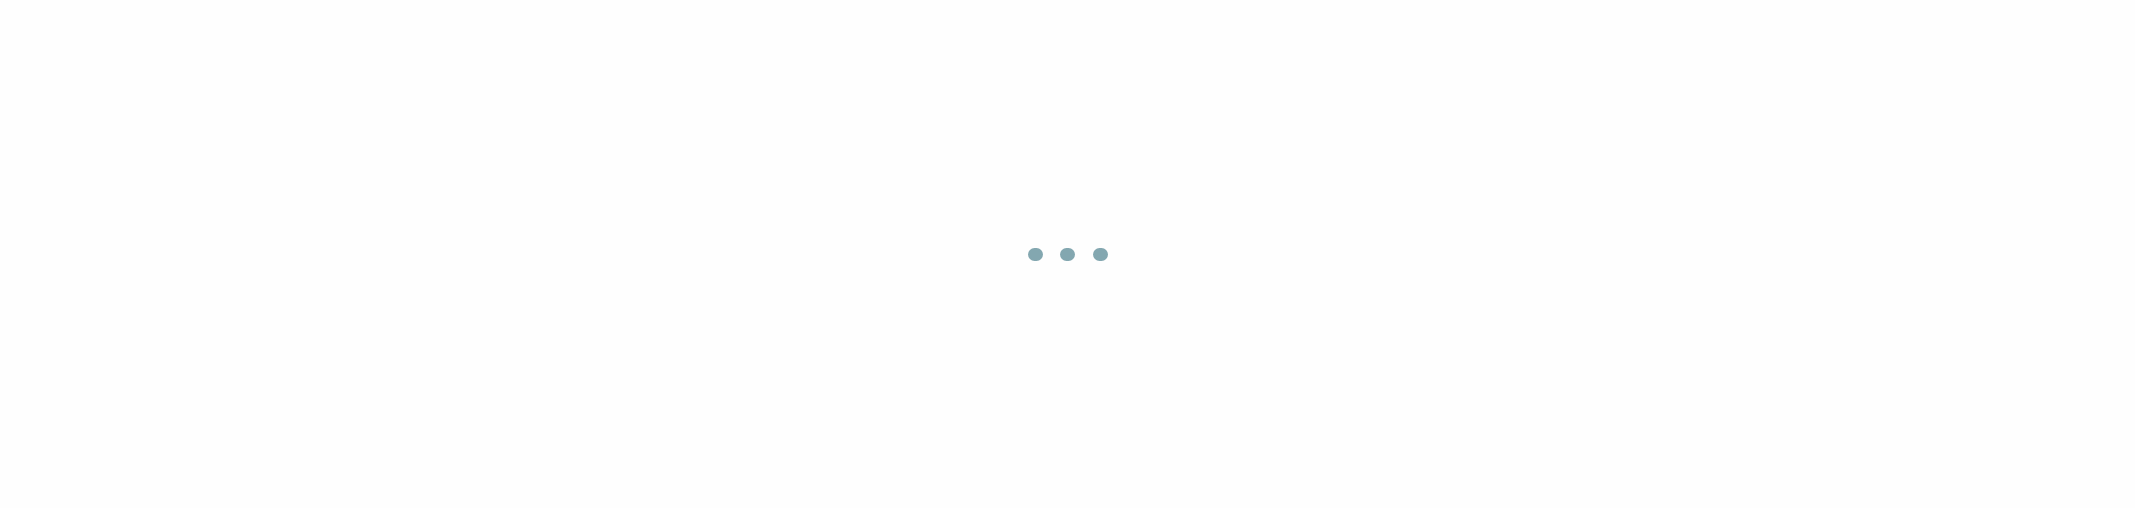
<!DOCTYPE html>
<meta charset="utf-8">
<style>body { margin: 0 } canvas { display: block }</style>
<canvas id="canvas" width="2135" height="508"></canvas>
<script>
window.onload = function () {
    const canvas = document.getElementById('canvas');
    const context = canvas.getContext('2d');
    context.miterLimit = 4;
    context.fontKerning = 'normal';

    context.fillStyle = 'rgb(254, 254, 254)';
    context.fillRect(0, 0, 2135, 508);
    context.fillStyle = 'rgb(131, 167, 176)';
    context.beginPath();
    context.roundRect(1028, 248, 15, 13, 6.5);
    context.fill();
    context.beginPath();
    context.roundRect(1060, 248, 15, 13, 6.5);
    context.fill();
    context.beginPath();
    context.roundRect(1093, 248, 15, 13, 6.5);
    context.fill();
};
</script>
